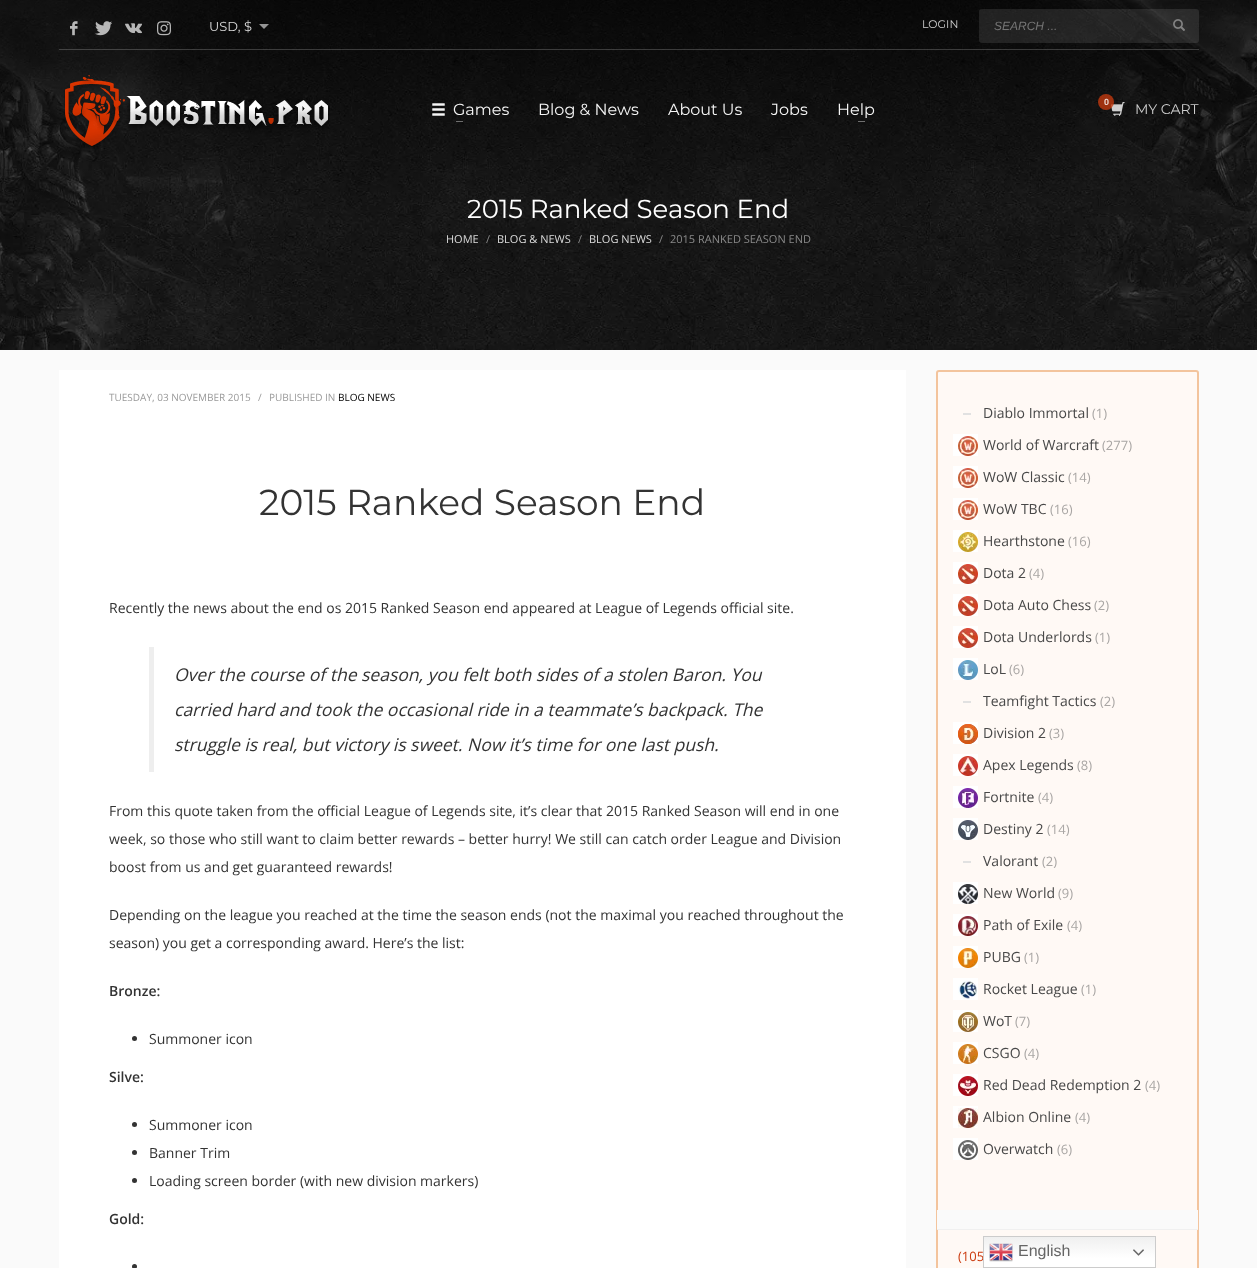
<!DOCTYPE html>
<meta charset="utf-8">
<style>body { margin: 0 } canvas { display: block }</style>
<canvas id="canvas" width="1257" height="1268"></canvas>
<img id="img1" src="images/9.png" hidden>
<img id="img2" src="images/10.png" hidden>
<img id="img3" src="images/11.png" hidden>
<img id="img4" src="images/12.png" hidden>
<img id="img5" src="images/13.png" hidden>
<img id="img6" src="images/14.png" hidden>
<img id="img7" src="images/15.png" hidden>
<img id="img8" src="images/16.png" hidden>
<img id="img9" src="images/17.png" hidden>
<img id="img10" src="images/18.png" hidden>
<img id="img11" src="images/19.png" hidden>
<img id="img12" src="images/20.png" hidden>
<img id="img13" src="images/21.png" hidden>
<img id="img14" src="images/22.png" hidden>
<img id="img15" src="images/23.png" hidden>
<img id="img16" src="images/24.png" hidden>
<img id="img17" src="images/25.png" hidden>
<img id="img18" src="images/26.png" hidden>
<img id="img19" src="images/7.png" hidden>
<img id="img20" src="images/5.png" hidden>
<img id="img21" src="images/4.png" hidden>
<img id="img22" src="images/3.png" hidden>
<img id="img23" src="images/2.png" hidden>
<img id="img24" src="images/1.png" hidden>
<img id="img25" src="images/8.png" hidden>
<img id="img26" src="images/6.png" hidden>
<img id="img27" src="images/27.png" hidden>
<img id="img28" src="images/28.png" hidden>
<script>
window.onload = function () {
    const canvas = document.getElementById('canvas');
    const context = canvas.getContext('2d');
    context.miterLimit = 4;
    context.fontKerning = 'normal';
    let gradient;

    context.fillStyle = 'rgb(250, 250, 250)';
    context.fillRect(0, 0, 1257, 1268);
    context.drawImage(document.getElementById('img1'), 0, 0, 1257, 350);
    context.fillStyle = 'rgb(255, 255, 255)';
    context.fillRect(59, 370, 847, 898);
    context.fillStyle = 'rgb(238, 238, 238)';
    context.fillRect(149, 647, 5, 125);
    context.fillStyle = 'rgb(51, 51, 51)';
    context.beginPath();
    context.arc(134.5, 1038.5, 2.5, 0, 2 * Math.PI);
    context.fill();
    context.beginPath();
    context.arc(134.5, 1124.5, 2.5, 0, 2 * Math.PI);
    context.fill();
    context.beginPath();
    context.arc(134.5, 1152.5, 2.5, 0, 2 * Math.PI);
    context.fill();
    context.beginPath();
    context.arc(134.5, 1180.5, 2.5, 0, 2 * Math.PI);
    context.fill();
    context.beginPath();
    context.arc(134.5, 1266.5, 2.5, 0, 2 * Math.PI);
    context.fill();
    context.fillStyle = 'rgb(255, 249, 245)';
    context.beginPath();
    context.roundRect(937, 371, 261, 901, 2);
    context.fill();
    context.strokeStyle = 'rgb(243, 196, 157)';
    context.lineWidth = 2;
    context.stroke();
    context.fillStyle = 'rgb(225, 225, 225)';
    context.fillRect(963, 413, 8, 2);
    context.fillStyle = 'rgb(255, 255, 255)';
    context.fillRect(953, 434, 25, 22);
    context.drawImage(document.getElementById('img2'), 958, 436, 20, 20);
    context.fillRect(953, 466, 25, 22);
    context.drawImage(document.getElementById('img2'), 958, 468, 20, 20);
    context.fillRect(953, 498, 25, 22);
    context.drawImage(document.getElementById('img2'), 958, 500, 20, 20);
    context.fillRect(953, 530, 25, 22);
    context.drawImage(document.getElementById('img3'), 958, 532, 20, 20);
    context.fillRect(953, 562, 25, 22);
    context.drawImage(document.getElementById('img4'), 958, 564, 20, 20);
    context.fillRect(953, 594, 25, 22);
    context.drawImage(document.getElementById('img4'), 958, 596, 20, 20);
    context.fillRect(953, 626, 25, 22);
    context.drawImage(document.getElementById('img4'), 958, 628, 20, 20);
    context.fillRect(953, 658, 25, 22);
    context.drawImage(document.getElementById('img5'), 958, 660, 20, 20);
    context.fillStyle = 'rgb(225, 225, 225)';
    context.fillRect(963, 701, 8, 2);
    context.fillStyle = 'rgb(255, 255, 255)';
    context.fillRect(953, 722, 25, 22);
    context.drawImage(document.getElementById('img6'), 958, 724, 20, 20);
    context.fillRect(953, 754, 25, 22);
    context.drawImage(document.getElementById('img7'), 958, 756, 20, 20);
    context.fillRect(953, 786, 25, 22);
    context.drawImage(document.getElementById('img8'), 958, 788, 20, 20);
    context.fillRect(953, 818, 25, 22);
    context.drawImage(document.getElementById('img9'), 958, 820, 20, 20);
    context.fillStyle = 'rgb(225, 225, 225)';
    context.fillRect(963, 861, 8, 2);
    context.fillStyle = 'rgb(255, 255, 255)';
    context.fillRect(953, 882, 25, 22);
    context.drawImage(document.getElementById('img10'), 958, 884, 20, 20);
    context.fillRect(953, 914, 25, 22);
    context.drawImage(document.getElementById('img11'), 958, 916, 20, 20);
    context.fillRect(953, 946, 25, 22);
    context.drawImage(document.getElementById('img12'), 958, 948, 20, 20);
    context.fillRect(953, 978, 25, 22);
    context.drawImage(document.getElementById('img13'), 958, 980, 19, 19);
    context.fillRect(953, 1010, 25, 22);
    context.drawImage(document.getElementById('img14'), 958, 1012, 20, 20);
    context.fillRect(953, 1042, 25, 22);
    context.drawImage(document.getElementById('img15'), 958, 1044, 20, 20);
    context.fillRect(953, 1074, 25, 22);
    context.drawImage(document.getElementById('img16'), 958, 1076, 20, 20);
    context.fillRect(953, 1106, 25, 22);
    context.drawImage(document.getElementById('img17'), 958, 1108, 20, 20);
    context.fillRect(953, 1138, 25, 22);
    context.drawImage(document.getElementById('img18'), 958, 1140, 20, 20);
    context.fillStyle = 'rgb(250, 250, 250)';
    context.fillRect(937, 1210, 261, 19);
    context.fillStyle = 'rgb(240, 240, 240)';
    context.fillRect(937, 1229, 261, 1);
    gradient = context.createLinearGradient(1070, 1236, 1070, 1268);
    gradient.addColorStop(0, 'rgb(239, 239, 239)');
    gradient.addColorStop(0.7, 'rgb(255, 255, 255)');
    context.fillStyle = gradient;
    context.fillRect(984, 1237, 171, 30);
    context.font = '26px Montserrat';
    context.fillStyle = 'rgb(255, 255, 255)';
    context.fillText('2015 Ranked Season End', 467, 218);
    gradient = context.createLinearGradient(629, 0, 629, 207);
    gradient.addColorStop(0, 'rgba(0, 0, 0, 0.6)');
    gradient.addColorStop(1, 'rgba(0, 0, 0, 0)');
    context.fillStyle = gradient;
    context.fillRect(0, 0, 1257, 200);
    context.drawImage(document.getElementById('img19'), 432, 103, 13, 13);
    context.fillStyle = 'rgb(112, 112, 112)';
    context.fillRect(858, 121, 7, 1);
    context.font = '16px Montserrat';
    context.fillStyle = 'rgb(245, 245, 245)';
    context.fillText('Help', 837, 115);
    context.fillText('Jobs', 771, 115);
    context.fillText('About Us', 668, 115);
    context.fillText('Blog & News', 538, 115);
    context.fillStyle = 'rgba(255, 255, 255, 0.4)';
    context.fillRect(456, 121, 7, 1);
    context.fillStyle = 'rgb(245, 245, 245)';
    context.fillText('Games', 453, 115);
    context.fillStyle = 'rgba(255, 255, 255, 0.1)';
    context.beginPath();
    context.roundRect(979, 9, 220, 34, 3);
    context.fill();
    context.drawImage(document.getElementById('img20'), 1173, 19, 12, 12);
    context.drawImage(document.getElementById('img21'), 157, 21, 14, 15);
    context.drawImage(document.getElementById('img22'), 125, 23, 17, 11);
    context.drawImage(document.getElementById('img23'), 95, 21, 17, 15);
    context.drawImage(document.getElementById('img24'), 70, 21, 8, 15);
    context.drawImage(document.getElementById('img25'), 1111, 102, 14, 14);
    context.fillStyle = 'rgba(194, 57, 15, 0.8)';
    context.beginPath();
    context.arc(1106, 102, 8, 0, 2 * Math.PI);
    context.fill();
    context.font = 'bold 9px Liberation Sans';
    context.fillStyle = 'rgb(236, 214, 207)';
    context.fillText('0', 1104, 105);
    context.font = '14px Montserrat';
    context.fillStyle = 'rgb(206, 206, 206)';
    context.fillText('MY CART', 1135, 114);
    context.drawImage(document.getElementById('img26'), 64, 75, 266, 74);
    context.fillStyle = 'rgba(255, 255, 255, 0.2)';
    context.fillRect(59, 49, 1140, 1);
    context.font = 'italic 12px Liberation Sans';
    context.fillStyle = 'rgb(117, 117, 117)';
    context.fillText('SEARCH ...', 994, 30);
    context.font = '11px Montserrat';
    context.fillStyle = 'rgb(206, 206, 206)';
    context.fillText('LOGIN', 922, 28);
    context.fillStyle = 'rgb(148, 148, 148)';
    context.beginPath();
    context.moveTo(259, 24);
    context.lineTo(269, 24);
    context.lineTo(264, 29);
    context.closePath();
    context.fill();
    context.font = '13px Montserrat';
    context.fillStyle = 'rgb(220, 220, 220)';
    context.fillText('USD, $', 209, 31);
    context.font = '11px Open Sans';
    context.fillText('HOME', 446, 243);
    context.fillStyle = 'rgb(138, 138, 138)';
    context.fillText('/', 486, 243);
    context.fillStyle = 'rgb(220, 220, 220)';
    context.fillText('BLOG & NEWS', 497, 243);
    context.fillStyle = 'rgb(138, 138, 138)';
    context.fillText('/', 578, 243);
    context.fillStyle = 'rgb(220, 220, 220)';
    context.fillText('BLOG NEWS', 589, 243);
    context.fillStyle = 'rgb(138, 138, 138)';
    context.fillText('/', 659, 243);
    context.fillText('2015 RANKED SEASON END', 670, 243);
    context.font = '10px Open Sans';
    context.fillStyle = 'rgb(154, 154, 154)';
    context.fillText('TUESDAY, 03 NOVEMBER 2015', 109, 401);
    context.fillText('/', 258, 401);
    context.fillText('PUBLISHED IN', 269, 401);
    context.fillStyle = 'rgb(0, 0, 0)';
    context.fillText('BLOG NEWS', 338, 401);
    context.font = '36px Montserrat';
    context.fillStyle = 'rgb(51, 51, 51)';
    context.fillText('2015 Ranked Season End', 259, 515);
    context.font = '14px Open Sans';
    context.fillText('Recently the news about the end os 2015 Ranked Season end appeared at League of Legends official site.', 109, 613);
    context.font = 'italic 17.5px Open Sans';
    context.fillText('Over the course of the season, you felt both sides of a stolen Baron. You', 174, 681);
    context.fillText('carried hard and took the occasional ride in a teammate’s backpack. The', 174, 716);
    context.fillText('struggle is real, but victory is sweet. Now it’s time for one last push.', 174, 751);
    context.font = '14px Open Sans';
    context.fillText('From this quote taken from the official League of Legends site, it’s clear that 2015 Ranked Season will end in one', 109, 816);
    context.fillText('week, so those who still want to claim better rewards – better hurry! We still can catch order League and Division', 109, 844);
    context.fillText('boost from us and get guaranteed rewards!', 109, 872);
    context.fillText('Depending on the league you reached at the time the season ends (not the maximal you reached throughout the', 109, 920);
    context.fillText('season) you get a corresponding award. Here’s the list:', 109, 948);
    context.font = '600 14px Open Sans';
    context.fillText('Bronze:', 109, 996);
    context.font = '14px Open Sans';
    context.fillText('Summoner icon', 149, 1044);
    context.font = '600 14px Open Sans';
    context.fillText('Silve:', 109, 1082);
    context.font = '14px Open Sans';
    context.fillText('Summoner icon', 149, 1130);
    context.fillText('Banner Trim', 149, 1158);
    context.fillText('Loading screen border (with new division markers)', 149, 1186);
    context.font = '600 14px Open Sans';
    context.fillText('Gold:', 109, 1224);
    context.font = '14px Open Sans';
    context.fillStyle = 'rgb(72, 72, 72)';
    context.fillText('Diablo Immortal', 983, 418);
    context.font = '13px Open Sans';
    context.fillStyle = 'rgb(169, 166, 164)';
    context.fillText('(1)', 1092, 418);
    context.font = '14px Open Sans';
    context.fillStyle = 'rgb(72, 72, 72)';
    context.fillText('World of Warcraft', 983, 450);
    context.font = '13px Open Sans';
    context.fillStyle = 'rgb(169, 166, 164)';
    context.fillText('(277)', 1102, 450);
    context.font = '14px Open Sans';
    context.fillStyle = 'rgb(72, 72, 72)';
    context.fillText('WoW Classic', 983, 482);
    context.font = '13px Open Sans';
    context.fillStyle = 'rgb(169, 166, 164)';
    context.fillText('(14)', 1068, 482);
    context.font = '14px Open Sans';
    context.fillStyle = 'rgb(72, 72, 72)';
    context.fillText('WoW TBC', 983, 514);
    context.font = '13px Open Sans';
    context.fillStyle = 'rgb(169, 166, 164)';
    context.fillText('(16)', 1050, 514);
    context.font = '14px Open Sans';
    context.fillStyle = 'rgb(72, 72, 72)';
    context.fillText('Hearthstone', 983, 546);
    context.font = '13px Open Sans';
    context.fillStyle = 'rgb(169, 166, 164)';
    context.fillText('(16)', 1068, 546);
    context.font = '14px Open Sans';
    context.fillStyle = 'rgb(72, 72, 72)';
    context.fillText('Dota 2', 983, 578);
    context.font = '13px Open Sans';
    context.fillStyle = 'rgb(169, 166, 164)';
    context.fillText('(4)', 1029, 578);
    context.font = '14px Open Sans';
    context.fillStyle = 'rgb(72, 72, 72)';
    context.fillText('Dota Auto Chess', 983, 610);
    context.font = '13px Open Sans';
    context.fillStyle = 'rgb(169, 166, 164)';
    context.fillText('(2)', 1094, 610);
    context.font = '14px Open Sans';
    context.fillStyle = 'rgb(72, 72, 72)';
    context.fillText('Dota Underlords', 983, 642);
    context.font = '13px Open Sans';
    context.fillStyle = 'rgb(169, 166, 164)';
    context.fillText('(1)', 1095, 642);
    context.font = '14px Open Sans';
    context.fillStyle = 'rgb(72, 72, 72)';
    context.fillText('LoL', 983, 674);
    context.font = '13px Open Sans';
    context.fillStyle = 'rgb(169, 166, 164)';
    context.fillText('(6)', 1009, 674);
    context.font = '14px Open Sans';
    context.fillStyle = 'rgb(72, 72, 72)';
    context.fillText('Teamfight Tactics', 983, 706);
    context.font = '13px Open Sans';
    context.fillStyle = 'rgb(169, 166, 164)';
    context.fillText('(2)', 1100, 706);
    context.font = '14px Open Sans';
    context.fillStyle = 'rgb(72, 72, 72)';
    context.fillText('Division 2', 983, 738);
    context.font = '13px Open Sans';
    context.fillStyle = 'rgb(169, 166, 164)';
    context.fillText('(3)', 1049, 738);
    context.font = '14px Open Sans';
    context.fillStyle = 'rgb(72, 72, 72)';
    context.fillText('Apex Legends', 983, 770);
    context.font = '13px Open Sans';
    context.fillStyle = 'rgb(169, 166, 164)';
    context.fillText('(8)', 1077, 770);
    context.font = '14px Open Sans';
    context.fillStyle = 'rgb(72, 72, 72)';
    context.fillText('Fortnite', 983, 802);
    context.font = '13px Open Sans';
    context.fillStyle = 'rgb(169, 166, 164)';
    context.fillText('(4)', 1038, 802);
    context.font = '14px Open Sans';
    context.fillStyle = 'rgb(72, 72, 72)';
    context.fillText('Destiny 2', 983, 834);
    context.font = '13px Open Sans';
    context.fillStyle = 'rgb(169, 166, 164)';
    context.fillText('(14)', 1047, 834);
    context.font = '14px Open Sans';
    context.fillStyle = 'rgb(72, 72, 72)';
    context.fillText('Valorant', 983, 866);
    context.font = '13px Open Sans';
    context.fillStyle = 'rgb(169, 166, 164)';
    context.fillText('(2)', 1042, 866);
    context.font = '14px Open Sans';
    context.fillStyle = 'rgb(72, 72, 72)';
    context.fillText('New World', 983, 898);
    context.font = '13px Open Sans';
    context.fillStyle = 'rgb(169, 166, 164)';
    context.fillText('(9)', 1058, 898);
    context.font = '14px Open Sans';
    context.fillStyle = 'rgb(72, 72, 72)';
    context.fillText('Path of Exile', 983, 930);
    context.font = '13px Open Sans';
    context.fillStyle = 'rgb(169, 166, 164)';
    context.fillText('(4)', 1067, 930);
    context.font = '14px Open Sans';
    context.fillStyle = 'rgb(72, 72, 72)';
    context.fillText('PUBG', 983, 962);
    context.font = '13px Open Sans';
    context.fillStyle = 'rgb(169, 166, 164)';
    context.fillText('(1)', 1024, 962);
    context.font = '14px Open Sans';
    context.fillStyle = 'rgb(72, 72, 72)';
    context.fillText('Rocket League', 983, 994);
    context.font = '13px Open Sans';
    context.fillStyle = 'rgb(169, 166, 164)';
    context.fillText('(1)', 1081, 994);
    context.font = '14px Open Sans';
    context.fillStyle = 'rgb(72, 72, 72)';
    context.fillText('WoT', 983, 1026);
    context.font = '13px Open Sans';
    context.fillStyle = 'rgb(169, 166, 164)';
    context.fillText('(7)', 1015, 1026);
    context.font = '14px Open Sans';
    context.fillStyle = 'rgb(72, 72, 72)';
    context.fillText('CSGO', 983, 1058);
    context.font = '13px Open Sans';
    context.fillStyle = 'rgb(169, 166, 164)';
    context.fillText('(4)', 1024, 1058);
    context.font = '14px Open Sans';
    context.fillStyle = 'rgb(72, 72, 72)';
    context.fillText('Red Dead Redemption 2', 983, 1090);
    context.font = '13px Open Sans';
    context.fillStyle = 'rgb(169, 166, 164)';
    context.fillText('(4)', 1145, 1090);
    context.font = '14px Open Sans';
    context.fillStyle = 'rgb(72, 72, 72)';
    context.fillText('Albion Online', 983, 1122);
    context.font = '13px Open Sans';
    context.fillStyle = 'rgb(169, 166, 164)';
    context.fillText('(4)', 1075, 1122);
    context.font = '14px Open Sans';
    context.fillStyle = 'rgb(72, 72, 72)';
    context.fillText('Overwatch', 983, 1154);
    context.font = '13px Open Sans';
    context.fillStyle = 'rgb(169, 166, 164)';
    context.fillText('(6)', 1057, 1154);
    context.fillStyle = 'rgb(203, 58, 14)';
    context.fillText('(105', 958, 1261);
    context.strokeStyle = 'rgb(204, 204, 204)';
    context.lineWidth = 1;
    context.strokeRect(983.5, 1236.5, 172, 31);
    context.drawImage(document.getElementById('img27'), 989, 1243, 24, 19);
    context.font = '16px Liberation Sans';
    context.fillStyle = 'rgb(102, 102, 102)';
    context.fillText('English', 1018, 1256);
    context.drawImage(document.getElementById('img28'), 1133, 1249, 11, 7);
};
</script>
